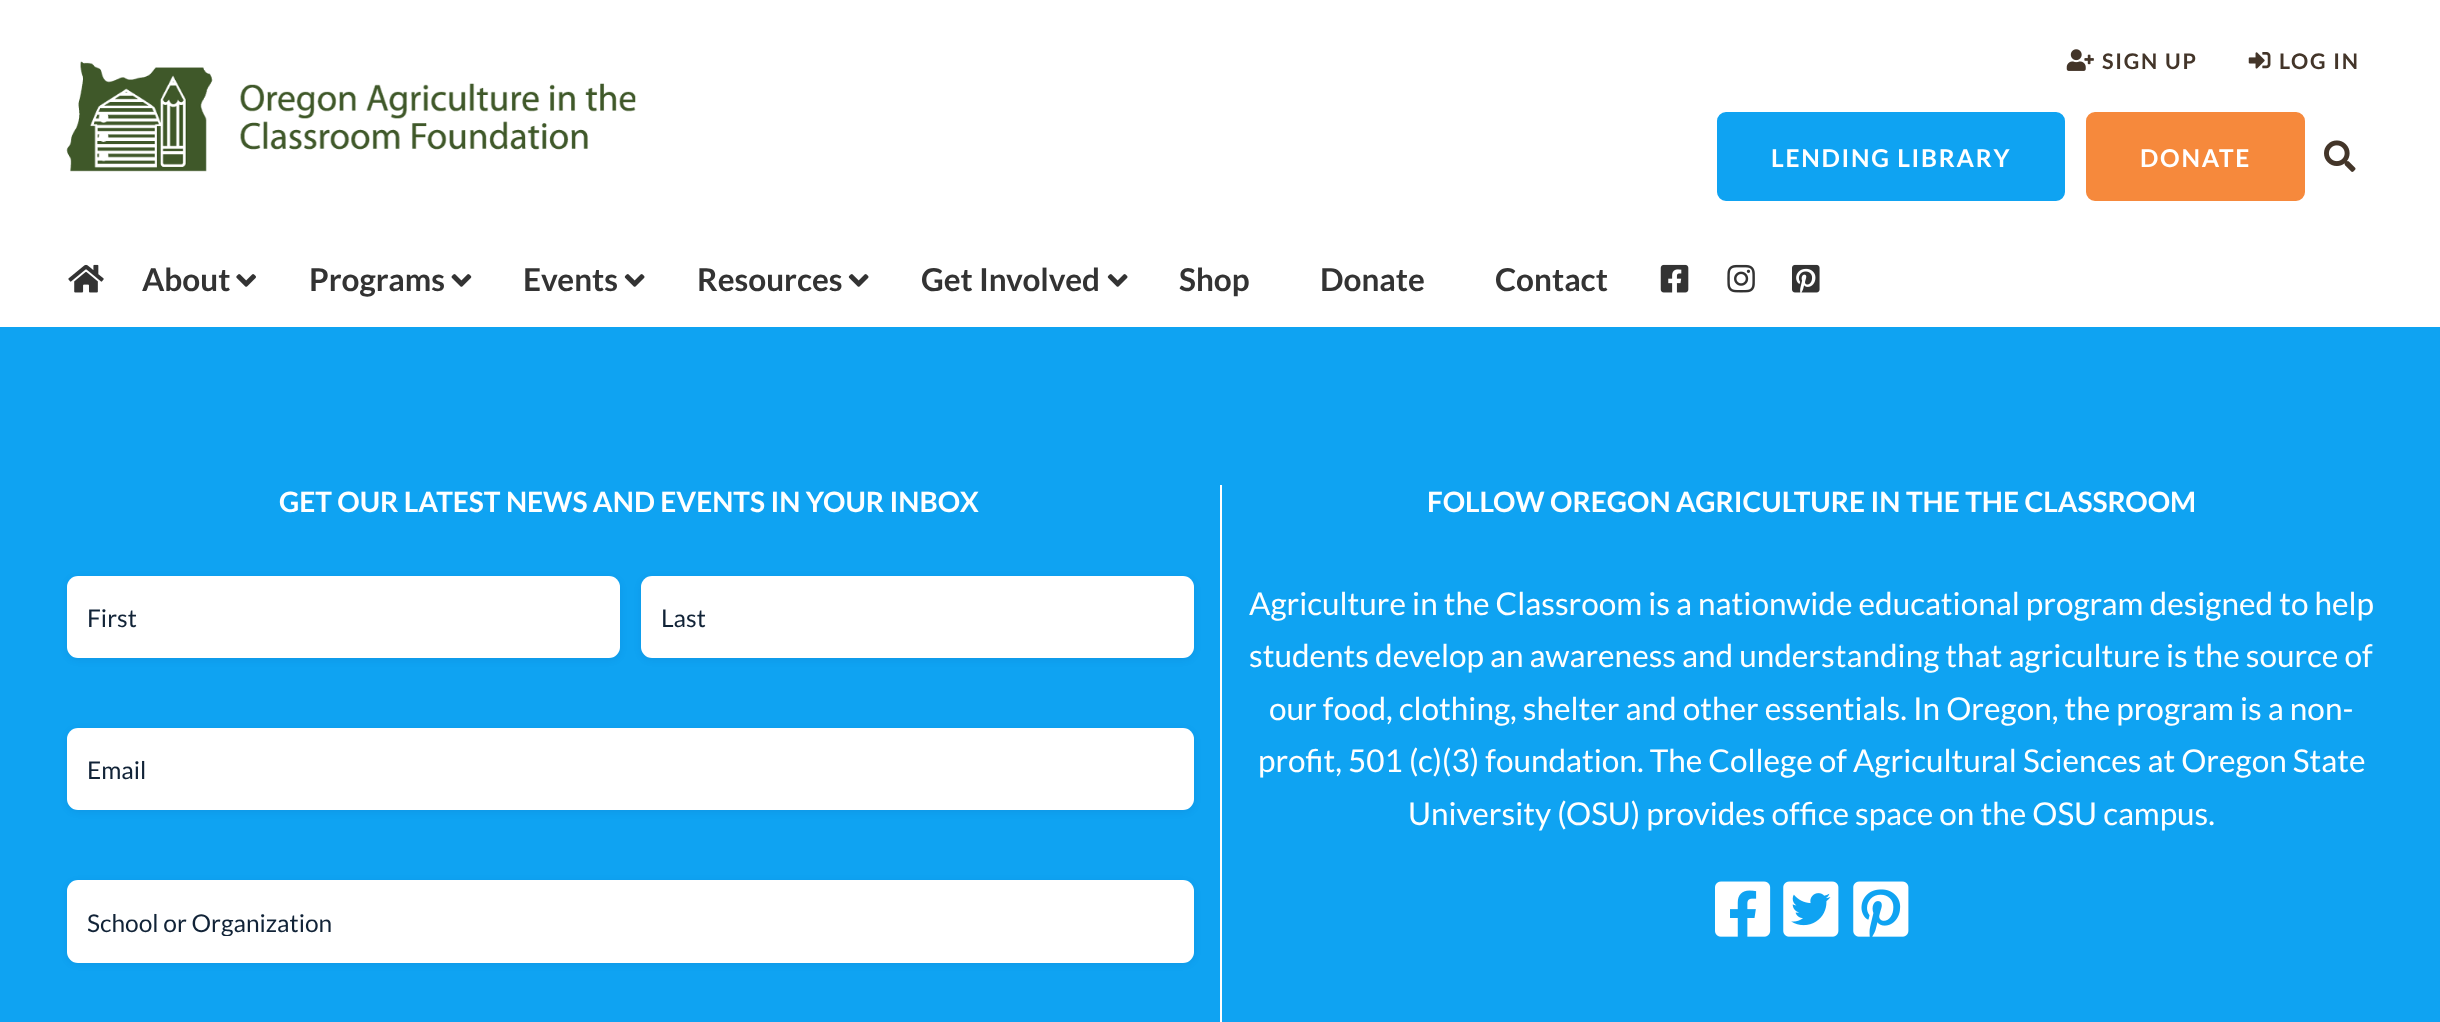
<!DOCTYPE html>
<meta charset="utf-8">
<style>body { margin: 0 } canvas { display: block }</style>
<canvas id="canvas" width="2440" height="1022"></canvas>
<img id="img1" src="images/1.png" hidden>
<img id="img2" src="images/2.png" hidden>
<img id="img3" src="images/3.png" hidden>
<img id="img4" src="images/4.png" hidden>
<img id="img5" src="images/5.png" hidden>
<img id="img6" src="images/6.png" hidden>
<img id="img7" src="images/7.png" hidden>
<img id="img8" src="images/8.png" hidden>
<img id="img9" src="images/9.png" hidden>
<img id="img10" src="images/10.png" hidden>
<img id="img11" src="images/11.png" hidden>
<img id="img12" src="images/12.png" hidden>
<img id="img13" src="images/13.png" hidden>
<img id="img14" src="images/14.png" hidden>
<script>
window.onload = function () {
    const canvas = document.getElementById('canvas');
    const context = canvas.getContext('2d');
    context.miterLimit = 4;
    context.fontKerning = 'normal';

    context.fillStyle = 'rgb(255, 255, 255)';
    context.fillRect(0, 0, 2440, 1022);
    context.drawImage(document.getElementById('img1'), 66, 61, 570, 111);
    context.drawImage(document.getElementById('img2'), 2066, 49, 28, 22);
    context.drawImage(document.getElementById('img3'), 2248, 52, 23, 17);
    context.fillStyle = 'rgb(15, 163, 242)';
    context.beginPath();
    context.roundRect(1718, 113, 346, 87, 8);
    context.fill();
    context.strokeStyle = 'rgb(15, 163, 242)';
    context.lineWidth = 2;
    context.stroke();
    context.fillStyle = 'rgb(246, 137, 60)';
    context.beginPath();
    context.roundRect(2087, 113, 217, 87, 8);
    context.fill();
    context.strokeStyle = 'rgb(246, 137, 60)';
    context.stroke();
    context.drawImage(document.getElementById('img4'), 2324, 140, 32, 32);
    context.drawImage(document.getElementById('img5'), 68, 264, 36, 29);
    context.drawImage(document.getElementById('img6'), 236, 274, 20, 13);
    context.drawImage(document.getElementById('img7'), 451, 274, 21, 13);
    context.drawImage(document.getElementById('img8'), 624, 274, 21, 13);
    context.drawImage(document.getElementById('img8'), 848, 274, 21, 13);
    context.drawImage(document.getElementById('img8'), 1107, 274, 21, 13);
    context.drawImage(document.getElementById('img9'), 1660, 264, 29, 29);
    context.drawImage(document.getElementById('img10'), 1727, 264, 28, 29);
    context.drawImage(document.getElementById('img11'), 1792, 264, 28, 29);
    context.fillStyle = 'rgb(15, 163, 242)';
    context.fillRect(0, 327, 2440, 695);
    context.fillStyle = 'rgb(255, 255, 255)';
    context.fillRect(1220, 485, 2, 537);
    context.fillStyle = 'rgba(18, 25, 97, 0.08)';
    context.filter = 'blur(3.5px)';
    context.beginPath();
    context.roundRect(67, 578, 553, 82, 11);
    context.fill();
    context.filter = 'none';
    context.fillStyle = 'rgb(255, 255, 255)';
    context.beginPath();
    context.roundRect(67, 576, 553, 82, 11);
    context.fill();
    context.fillStyle = 'rgba(18, 25, 97, 0.08)';
    context.filter = 'blur(3.5px)';
    context.beginPath();
    context.roundRect(641, 578, 553, 82, 11);
    context.fill();
    context.filter = 'none';
    context.fillStyle = 'rgb(255, 255, 255)';
    context.beginPath();
    context.roundRect(641, 576, 553, 82, 11);
    context.fill();
    context.fillStyle = 'rgba(18, 25, 97, 0.08)';
    context.filter = 'blur(3.5px)';
    context.beginPath();
    context.roundRect(67, 730, 1127, 82, 11);
    context.fill();
    context.filter = 'none';
    context.fillStyle = 'rgb(255, 255, 255)';
    context.beginPath();
    context.roundRect(67, 728, 1127, 82, 11);
    context.fill();
    context.fillStyle = 'rgba(18, 25, 97, 0.08)';
    context.filter = 'blur(3.5px)';
    context.beginPath();
    context.roundRect(67, 882, 1127, 82, 11);
    context.fill();
    context.filter = 'none';
    context.fillStyle = 'rgb(255, 255, 255)';
    context.beginPath();
    context.roundRect(67, 880, 1127, 83, 11);
    context.fill();
    context.drawImage(document.getElementById('img12'), 1715, 881, 56, 56);
    context.drawImage(document.getElementById('img13'), 1783, 881, 56, 56);
    context.drawImage(document.getElementById('img14'), 1853, 881, 56, 56);
    context.letterSpacing = '1.75px';
    context.font = 'bold 21.5px Lato';
    context.fillStyle = 'rgb(67, 53, 41)';
    context.fillText('SIGN UP', 2102, 69);
    context.fillText('LOG IN', 2279, 69);
    context.font = 'bold 24.5px Lato';
    context.fillStyle = 'rgb(255, 255, 255)';
    context.fillText('LENDING LIBRARY', 1771, 167);
    context.fillText('DONATE', 2140, 167);
    context.letterSpacing = '0px';
    context.font = 'bold 31.5px Lato';
    context.fillStyle = 'rgb(51, 51, 51)';
    context.fillText('About', 142, 291);
    context.fillText('Programs', 309, 291);
    context.fillText('Events', 523, 291);
    context.fillText('Resources', 697, 291);
    context.fillText('Get Involved', 921, 291);
    context.fillText('Shop', 1179, 291);
    context.fillText('Donate', 1320, 291);
    context.fillText('Contact', 1495, 291);
    context.font = 'bold 28px Lato';
    context.fillStyle = 'rgb(255, 255, 255)';
    context.fillText('GET OUR LATEST NEWS AND EVENTS IN YOUR INBOX', 279, 512);
    context.font = '24.5px Lato';
    context.fillStyle = 'rgb(17, 35, 55)';
    context.fillText('First', 87, 627);
    context.fillText('Last', 661, 627);
    context.fillText('Email', 87, 779);
    context.save();
    context.beginPath();
    context.rect(88, 907, 1085, 29);
    context.clip();
    context.fillText('School or Organization', 87, 932);
    context.restore();
    context.font = 'bold 28px Lato';
    context.fillStyle = 'rgb(255, 255, 255)';
    context.fillText('FOLLOW OREGON AGRICULTURE IN THE THE CLASSROOM', 1427, 512);
    context.font = '31.5px Lato';
    context.fillText('Agriculture in the Classroom is a nationwide educational program designed to help', 1249, 615);
    context.fillText('students develop an awareness and understanding that agriculture is the source of', 1249, 667);
    context.fillText('our food, clothing, shelter and other essentials. In Oregon, the program is a non-', 1269, 720);
    context.fillText('profit, 501 (c)(3) foundation. The College of Agricultural Sciences at Oregon State', 1258, 772);
    context.fillText('University (OSU) provides office space on the OSU campus.', 1408, 825);
};
</script>
